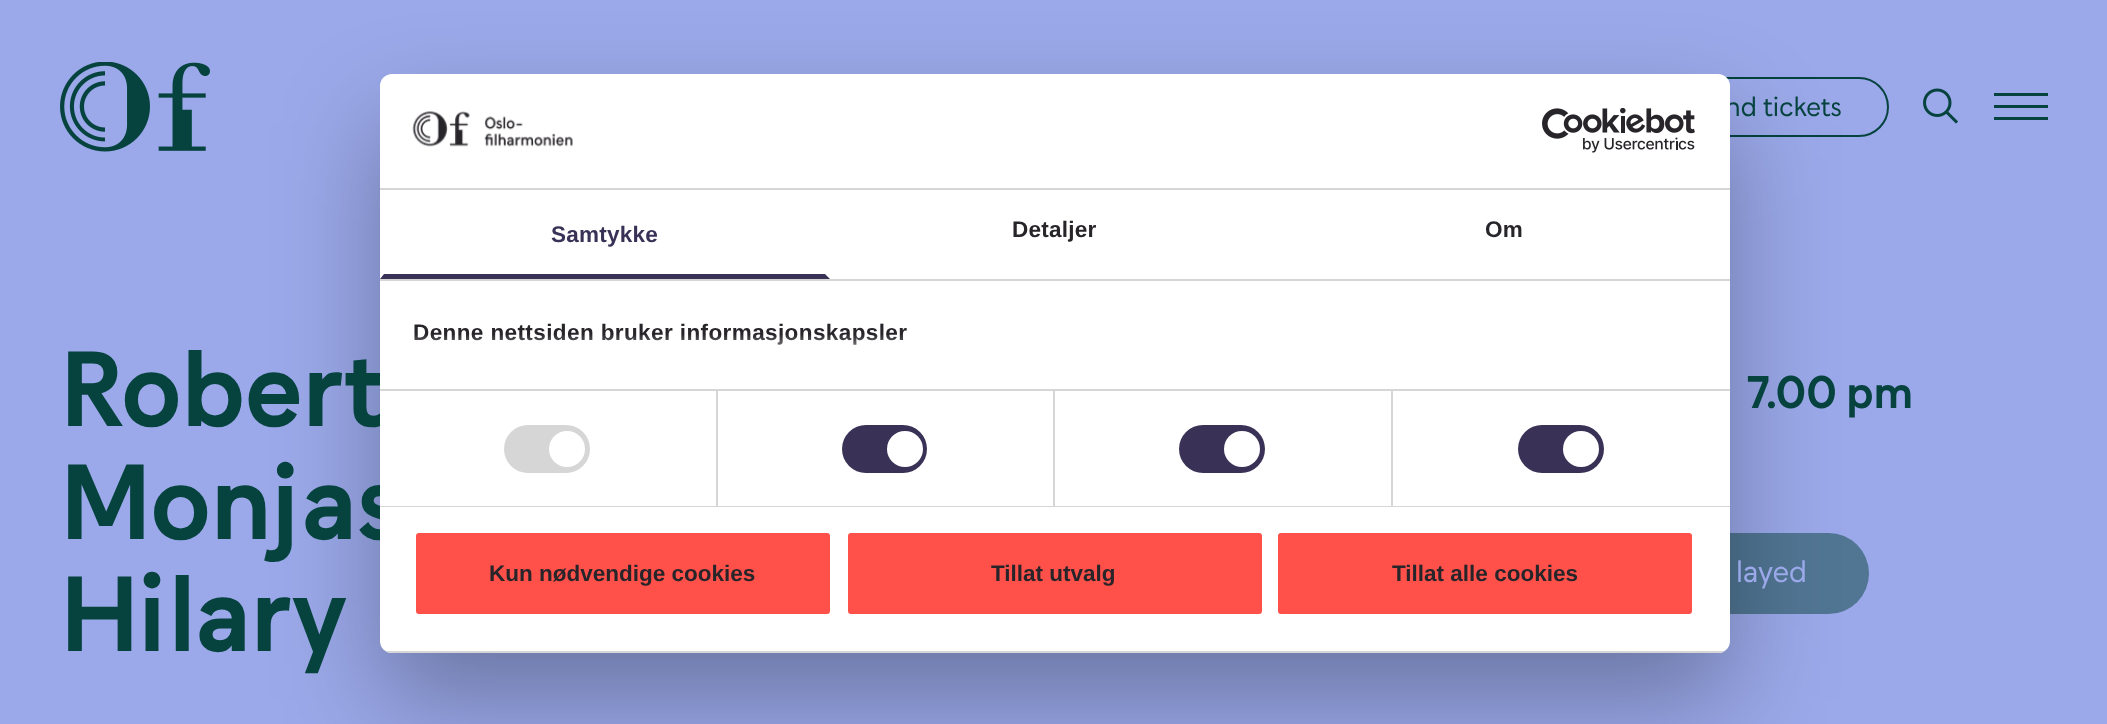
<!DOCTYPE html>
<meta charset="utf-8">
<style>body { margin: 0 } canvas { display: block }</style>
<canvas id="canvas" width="2107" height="724"></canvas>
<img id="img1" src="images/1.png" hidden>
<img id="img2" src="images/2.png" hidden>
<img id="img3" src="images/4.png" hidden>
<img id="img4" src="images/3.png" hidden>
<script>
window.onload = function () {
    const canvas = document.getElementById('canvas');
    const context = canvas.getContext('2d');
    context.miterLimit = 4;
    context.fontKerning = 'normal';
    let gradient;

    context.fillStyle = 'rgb(155, 169, 234)';
    context.fillRect(0, 0, 2107, 724);
    context.drawImage(document.getElementById('img1'), 60, 62, 150, 90);
    context.beginPath();
    context.roundRect(1552, 78, 336, 58, 29);
    context.strokeStyle = 'rgb(6, 67, 62)';
    context.lineWidth = 2;
    context.stroke();
    context.drawImage(document.getElementById('img2'), 1923, 88, 35, 36);
    context.fillStyle = 'rgb(6, 67, 62)';
    context.fillRect(1994, 93, 54, 3);
    context.fillRect(1994, 105, 54, 3);
    context.fillRect(1994, 117, 54, 3);
    context.fillStyle = 'rgb(81, 118, 148)';
    context.beginPath();
    context.roundRect(1415, 533, 454, 81, 40.5);
    context.fill();
    context.fillStyle = 'rgba(0, 0, 0, 0.3)';
    context.filter = 'blur(51px)';
    context.beginPath();
    context.roundRect(380, 122, 1350, 579, 12);
    context.fill();
    context.filter = 'none';
    context.font = '27px "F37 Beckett"';
    context.fillStyle = 'rgb(6, 67, 62)';
    context.fillText('nd tickets', 1725, 116);
    context.font = 'bold 105px "F37 Beckett"';
    context.fillText('Robert', 60, 426);
    context.fillText('Monjas', 60, 539);
    context.fillStyle = 'rgb(255, 255, 255)';
    context.beginPath();
    context.roundRect(380, 74, 1350, 579, 12);
    context.fill();
    context.letterSpacing = '0.4px';
    context.font = 'bold 22.5px Liberation Sans';
    context.fillStyle = 'rgb(40, 37, 42)';
    context.fillText('Denne nettsiden bruker informasjonskapsler', 413, 340);
    gradient = context.createLinearGradient(1039, 388, 1039, 334);
    gradient.addColorStop(0, 'rgb(255, 255, 255)');
    gradient.addColorStop(0.5, 'rgba(255, 255, 255, 0.8)');
    gradient.addColorStop(1, 'rgba(255, 255, 255, 0)');
    context.fillStyle = gradient;
    context.fillRect(414, 335, 488, 10);
    context.fillStyle = 'rgb(255, 81, 74)';
    context.beginPath();
    context.roundRect(1276.5, 531.5, 417, 84, 4.5);
    context.fill();
    context.strokeStyle = 'rgb(255, 255, 255)';
    context.lineWidth = 3;
    context.stroke();
    context.letterSpacing = '0px';
    context.fillStyle = 'rgb(40, 37, 42)';
    context.fillText('Tillat alle cookies', 1392, 581);
    context.fillStyle = 'rgb(255, 81, 74)';
    context.beginPath();
    context.roundRect(846.5, 531.5, 417, 84, 4.5);
    context.fill();
    context.stroke();
    context.fillStyle = 'rgb(40, 37, 42)';
    context.fillText('Tillat utvalg', 991, 581);
    context.fillStyle = 'rgb(255, 81, 74)';
    context.beginPath();
    context.roundRect(414.5, 531.5, 417, 84, 4.5);
    context.fill();
    context.stroke();
    context.fillStyle = 'rgb(40, 37, 42)';
    context.fillText('Kun nødvendige cookies', 489, 581);
    context.save();
    context.beginPath();
    context.roundRect(380, 74, 1350, 579, 12);
    context.clip();
    context.fillStyle = 'rgb(214, 214, 214)';
    context.fillRect(380, 651, 1350, 2);
    context.restore();
    context.fillStyle = 'rgb(57, 50, 86)';
    context.beginPath();
    context.roundRect(1518, 425, 86, 48, 24);
    context.fill();
    context.fillStyle = 'rgb(255, 255, 255)';
    context.beginPath();
    context.arc(1581, 449, 18, 0, 2 * Math.PI);
    context.fill();
    context.fillStyle = 'rgb(57, 50, 86)';
    context.beginPath();
    context.roundRect(1179, 425, 86, 48, 24);
    context.fill();
    context.fillStyle = 'rgb(255, 255, 255)';
    context.beginPath();
    context.arc(1242, 449, 18, 0, 2 * Math.PI);
    context.fill();
    context.fillStyle = 'rgb(57, 50, 86)';
    context.beginPath();
    context.roundRect(842, 425, 85, 48, 24);
    context.fill();
    context.fillStyle = 'rgb(255, 255, 255)';
    context.beginPath();
    context.arc(905, 449, 18, 0, 2 * Math.PI);
    context.fill();
    context.fillStyle = 'rgb(214, 214, 214)';
    context.beginPath();
    context.roundRect(504, 425, 86, 48, 24);
    context.fill();
    context.fillStyle = 'rgb(255, 255, 255)';
    context.beginPath();
    context.arc(567, 449, 18, 0, 2 * Math.PI);
    context.fill();
    context.fillStyle = 'rgb(214, 214, 214)';
    context.fillRect(1391, 390, 2, 116);
    context.fillRect(1053, 390, 2, 116);
    context.fillRect(716, 390, 2, 116);
    context.fillRect(380, 389, 1350, 2);
    context.letterSpacing = '0.25px';
    context.fillStyle = 'rgb(40, 37, 42)';
    context.fillText('Om', 1485, 237);
    context.fillText('Detaljer', 1012, 237);
    context.fillStyle = 'rgb(57, 50, 86)';
    context.fillText('Samtykke', 551, 242);
    context.beginPath();
    context.moveTo(830, 279);
    context.lineTo(380, 279);
    context.lineTo(384, 274);
    context.lineTo(825, 274);
    context.closePath();
    context.fill();
    context.fillStyle = 'rgb(214, 214, 214)';
    context.fillRect(380, 279, 1350, 2);
    context.fillRect(380, 506, 1350, 1);
    context.drawImage(document.getElementById('img3'), 1542, 108, 153, 45);
    context.drawImage(document.getElementById('img4'), 412, 111, 161, 36);
    context.fillRect(380, 188, 1350, 2);
    context.letterSpacing = '0px';
    context.font = 'bold 105px "F37 Beckett"';
    context.fillStyle = 'rgb(6, 67, 62)';
    context.fillText('Hilary', 60, 651);
    context.font = 'bold 45px "F37 Beckett"';
    context.fillText('7.00 pm', 1747, 408);
    context.font = '30px "F37 Beckett"';
    context.fillStyle = 'rgb(155, 169, 234)';
    context.fillText('layed', 1736, 582);
};
</script>
